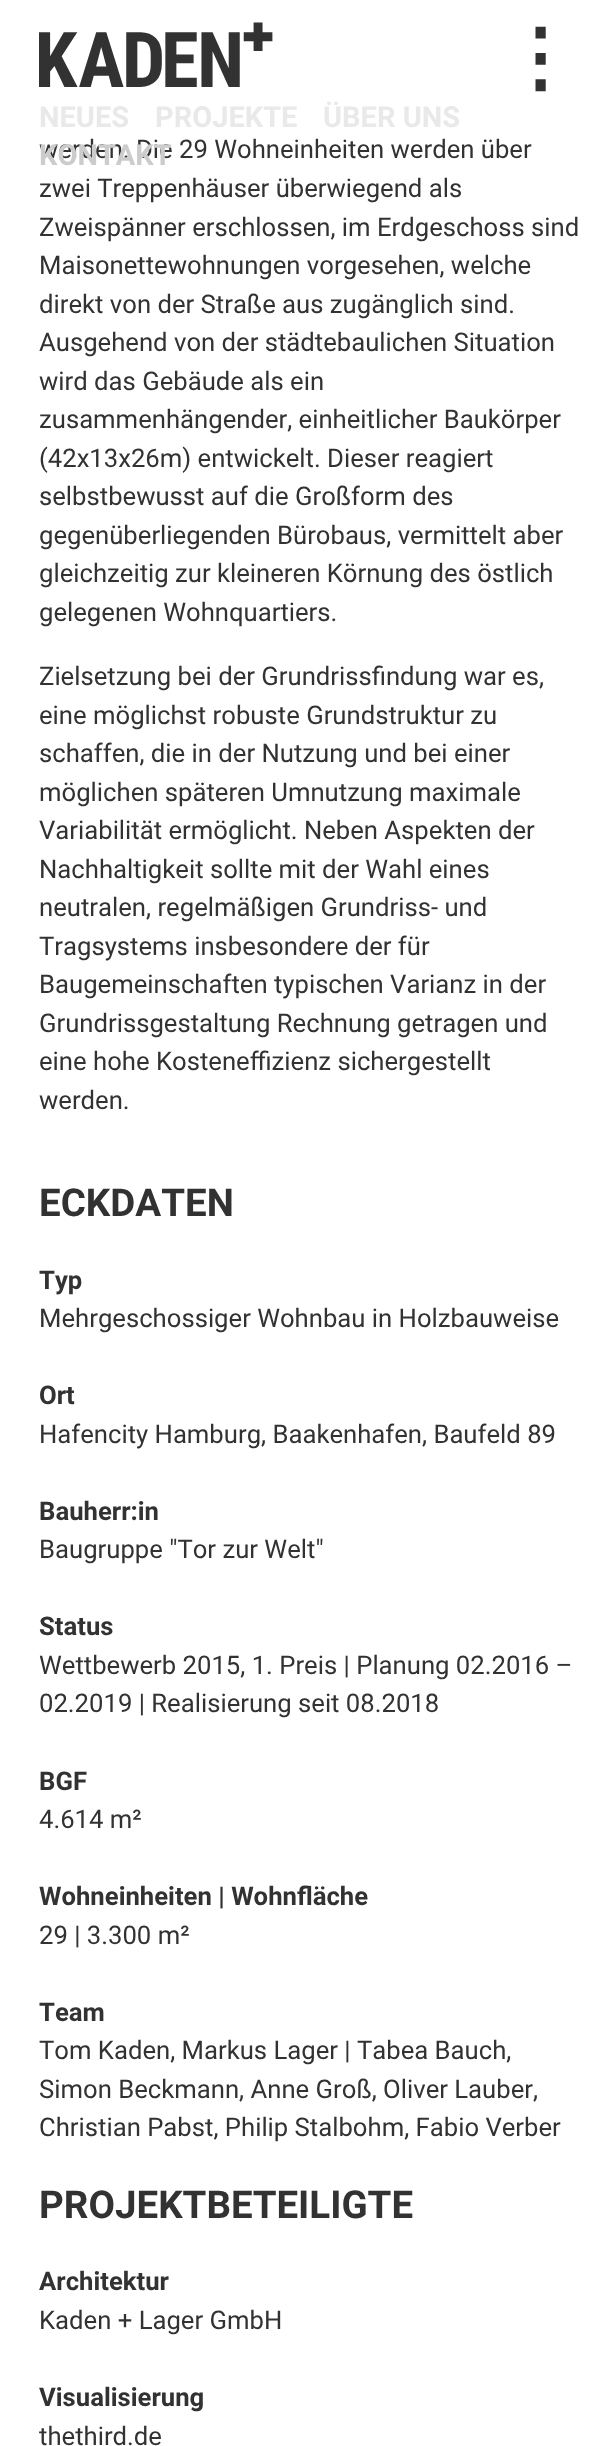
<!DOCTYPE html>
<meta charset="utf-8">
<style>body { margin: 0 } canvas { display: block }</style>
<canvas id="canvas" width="616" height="2446"></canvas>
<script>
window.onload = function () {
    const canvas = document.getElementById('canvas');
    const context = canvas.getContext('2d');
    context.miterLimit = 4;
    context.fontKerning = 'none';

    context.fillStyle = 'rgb(255, 255, 255)';
    context.fillRect(0, 0, 616, 2446);
    context.font = '77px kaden';
    context.fillStyle = 'rgb(49, 50, 49)';
    context.fillText('KADEN⁺', 39, 84);
    context.font = 'bold 77px DejaVu Sans';
    context.fillText('⋮', 501, 84);
    context.font = 'bold 29px Roboto';
    context.fillStyle = 'rgb(233, 233, 233)';
    context.fillText('NEUES', 39, 127);
    context.fillText('PROJEKTE', 155, 127);
    context.fillText('ÜBER UNS', 323, 127);
    context.font = '25.7px Roboto';
    context.fillStyle = 'rgb(49, 50, 49)';
    context.fillText('werden. Die 29 Wohneinheiten werden über', 39, 158);
    context.font = 'bold 29px Roboto';
    context.fillStyle = 'rgb(204, 204, 204)';
    context.fillText('KONTAKT', 39, 165);
    context.font = '25.7px Roboto';
    context.fillStyle = 'rgb(49, 50, 49)';
    context.fillText('zwei Treppenhäuser überwiegend als', 39, 197);
    context.fillText('Zweispänner erschlossen, im Erdgeschoss sind', 39, 236);
    context.fillText('Maisonettewohnungen vorgesehen, welche', 39, 274);
    context.fillText('direkt von der Straße aus zugänglich sind.', 39, 313);
    context.fillText('Ausgehend von der städtebaulichen Situation', 39, 351);
    context.fillText('wird das Gebäude als ein', 39, 390);
    context.fillText('zusammenhängender, einheitlicher Baukörper', 39, 428);
    context.fillText('(42x13x26m) entwickelt. Dieser reagiert', 39, 467);
    context.fillText('selbstbewusst auf die Großform des', 39, 505);
    context.fillText('gegenüberliegenden Bürobaus, vermittelt aber', 39, 544);
    context.fillText('gleichzeitig zur kleineren Körnung des östlich', 39, 582);
    context.fillText('gelegenen Wohnquartiers.', 39, 621);
    context.fillText('Zielsetzung bei der Grundrissfindung war es,', 39, 685);
    context.fillText('eine möglichst robuste Grundstruktur zu', 39, 724);
    context.fillText('schaffen, die in der Nutzung und bei einer', 39, 762);
    context.fillText('möglichen späteren Umnutzung maximale', 39, 801);
    context.fillText('Variabilität ermöglicht. Neben Aspekten der', 39, 839);
    context.fillText('Nachhaltigkeit sollte mit der Wahl eines', 39, 878);
    context.fillText('neutralen, regelmäßigen Grundriss- und', 39, 916);
    context.fillText('Tragsystems insbesondere der für', 39, 955);
    context.fillText('Baugemeinschaften typischen Varianz in der', 39, 993);
    context.fillText('Grundrissgestaltung Rechnung getragen und', 39, 1032);
    context.fillText('eine hohe Kosteneffizienz sichergestellt', 39, 1070);
    context.fillText('werden.', 39, 1109);
    context.font = 'bold 38.5px Roboto';
    context.fillText('ECKDATEN', 39, 1216);
    context.font = 'bold 25.7px Roboto';
    context.fillText('Typ', 39, 1289);
    context.font = '25.7px Roboto';
    context.fillText('Mehrgeschossiger Wohnbau in Holzbauweise', 39, 1327);
    context.font = 'bold 25.7px Roboto';
    context.fillText('Ort', 39, 1404);
    context.font = '25.7px Roboto';
    context.fillText('Hafencity Hamburg, Baakenhafen, Baufeld 89', 39, 1443);
    context.font = 'bold 25.7px Roboto';
    context.fillText('Bauherr:in', 39, 1520);
    context.font = '25.7px Roboto';
    context.fillText('Baugruppe "Tor zur Welt"', 39, 1558);
    context.font = 'bold 25.7px Roboto';
    context.fillText('Status', 39, 1635);
    context.font = '25.7px Roboto';
    context.fillText('Wettbewerb 2015, 1. Preis | Planung 02.2016 –', 39, 1674);
    context.fillText('02.2019 | Realisierung seit 08.2018', 39, 1712);
    context.font = 'bold 25.7px Roboto';
    context.fillText('BGF', 39, 1790);
    context.font = '25.7px Roboto';
    context.fillText('4.614 m²', 39, 1828);
    context.font = 'bold 25.7px Roboto';
    context.fillText('Wohneinheiten | Wohnfläche', 39, 1905);
    context.font = '25.7px Roboto';
    context.fillText('29 | 3.300 m²', 39, 1944);
    context.font = 'bold 25.7px Roboto';
    context.fillText('Team', 39, 2021);
    context.font = '25.7px Roboto';
    context.fillText('Tom Kaden, Markus Lager | Tabea Bauch,', 39, 2059);
    context.fillText('Simon Beckmann, Anne Groß, Oliver Lauber,', 39, 2098);
    context.fillText('Christian Pabst, Philip Stalbohm, Fabio Verber', 39, 2136);
    context.font = 'bold 38.5px Roboto';
    context.fillText('PROJEKTBETEILIGTE', 39, 2218);
    context.font = 'bold 25.7px Roboto';
    context.fillText('Architektur', 39, 2290);
    context.font = '25.7px Roboto';
    context.fillText('Kaden + Lager GmbH', 39, 2329);
    context.font = 'bold 25.7px Roboto';
    context.fillText('Visualisierung', 39, 2406);
    context.font = '25.7px Roboto';
    context.fillText('thethird.de', 39, 2445);
};
</script>
